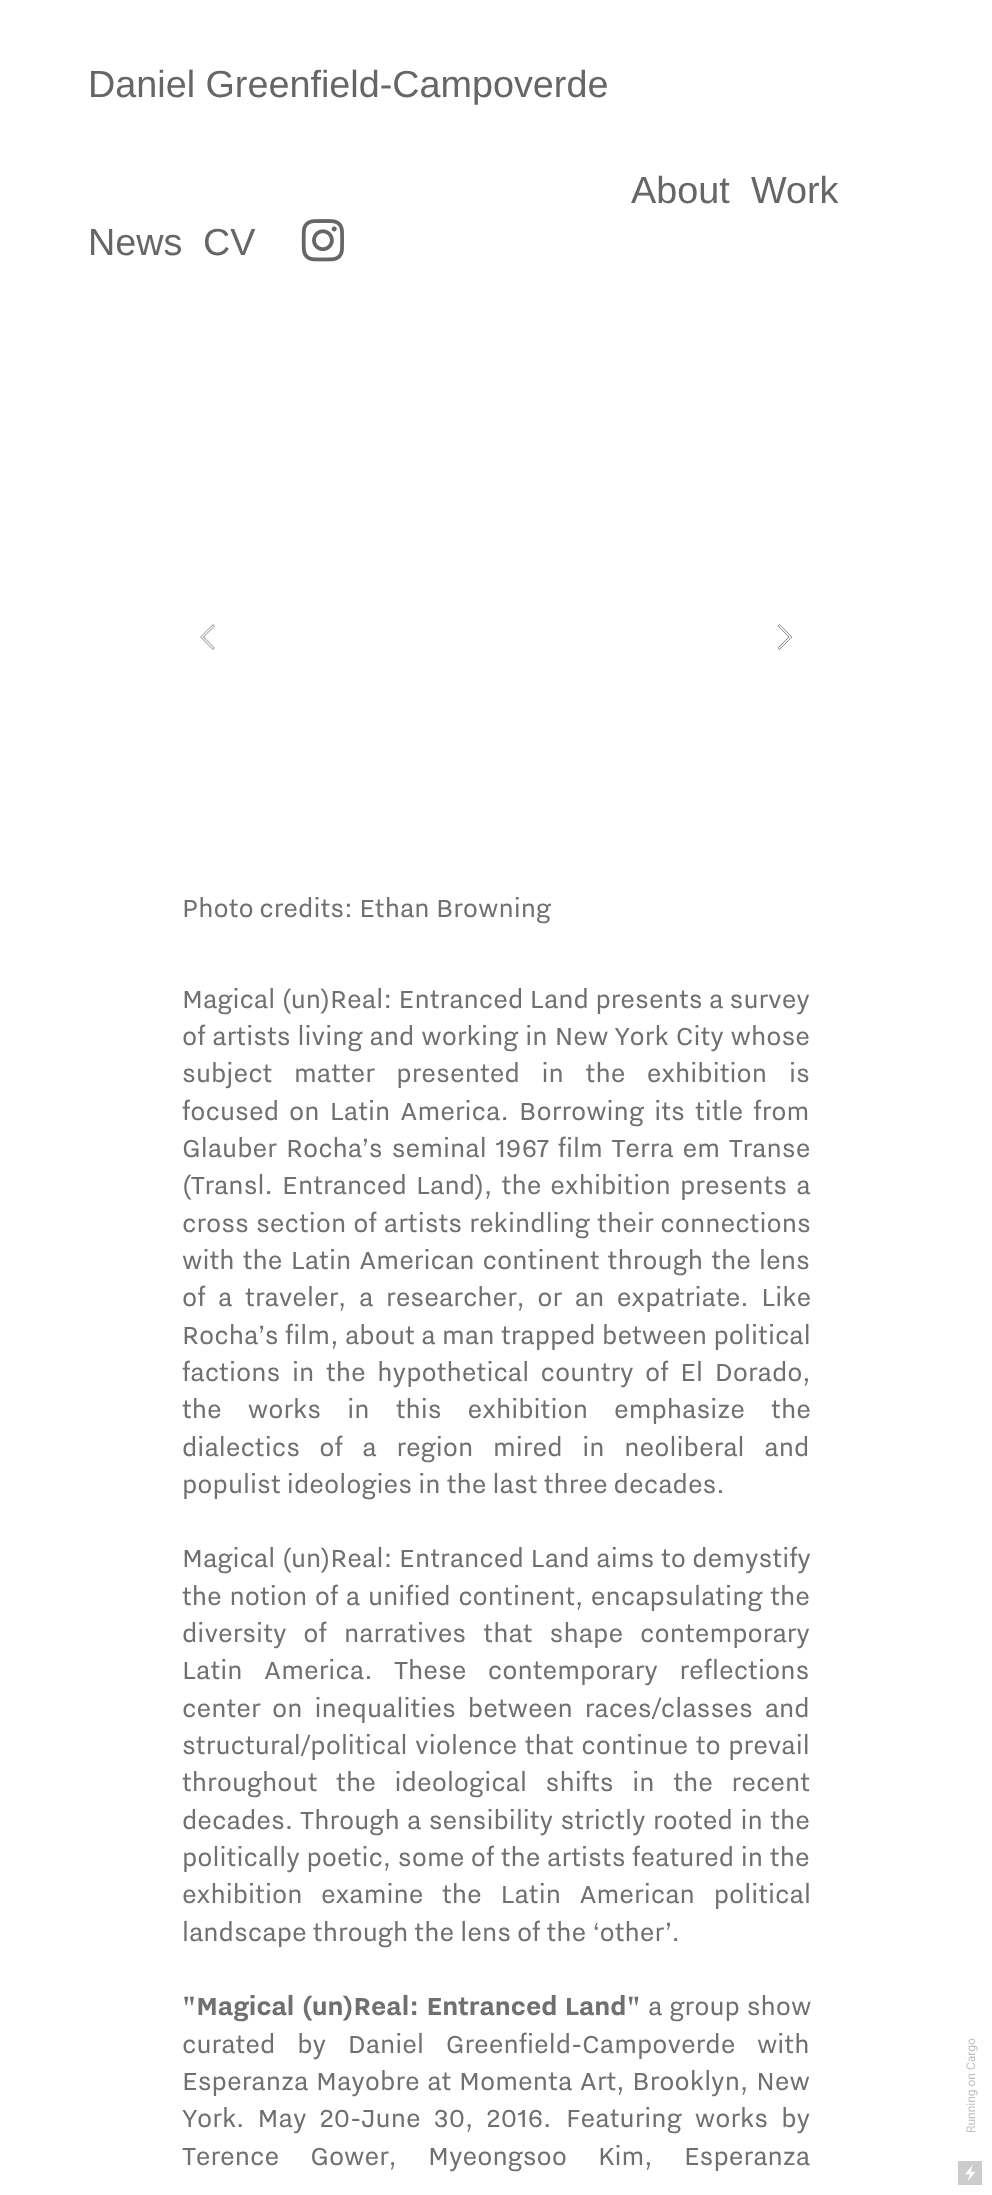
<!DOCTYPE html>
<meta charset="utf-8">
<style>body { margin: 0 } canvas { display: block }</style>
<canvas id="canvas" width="992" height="2195"></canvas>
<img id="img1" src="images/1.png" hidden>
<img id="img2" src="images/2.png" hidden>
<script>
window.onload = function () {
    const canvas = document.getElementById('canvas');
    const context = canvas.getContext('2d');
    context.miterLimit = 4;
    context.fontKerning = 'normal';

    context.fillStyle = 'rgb(255, 255, 255)';
    context.fillRect(0, 0, 992, 2195);
    context.drawImage(document.getElementById('img1'), 301, 219, 43, 43);
    context.beginPath();
    context.moveTo(213, 648);
    context.lineTo(202, 637);
    context.lineTo(213, 626);
    context.strokeStyle = 'rgb(102, 102, 102)';
    context.lineWidth = 2.5;
    context.lineCap = 'square';
    context.stroke();
    context.beginPath();
    context.moveTo(213, 648);
    context.lineTo(202, 637);
    context.lineTo(213, 626);
    context.strokeStyle = 'rgb(255, 255, 255)';
    context.lineWidth = 1.5;
    context.stroke();
    context.beginPath();
    context.moveTo(779.5, 648);
    context.lineTo(790.5, 637);
    context.lineTo(779.5, 626);
    context.strokeStyle = 'rgb(102, 102, 102)';
    context.lineWidth = 2.5;
    context.stroke();
    context.beginPath();
    context.moveTo(779.5, 648);
    context.lineTo(790.5, 637);
    context.lineTo(779.5, 626);
    context.strokeStyle = 'rgb(255, 255, 255)';
    context.lineWidth = 1.5;
    context.stroke();
    context.fillStyle = 'rgb(204, 204, 204)';
    context.fillRect(958, 2161, 24, 24);
    context.drawImage(document.getElementById('img2'), 965, 2165, 11, 16);
    context.font = '37.75px Liberation Sans';
    context.fillStyle = 'rgb(102, 102, 102)';
    context.fillText('Daniel Greenfield-Campoverde', 88, 97);
    context.fillText('About', 631, 203);
    context.fillText('Work', 751, 203);
    context.fillText('News', 88, 255);
    context.fillText('CV', 203, 255);
    context.font = '31.1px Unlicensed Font';
    context.fillStyle = 'rgb(112, 112, 112)';
    context.fillText('Photo credits: Ethan Browning', 182, 917);
    context.wordSpacing = '0.25px';
    context.fillText('Magical (un)Real: Entranced Land presents a survey', 182, 1008);
    context.wordSpacing = '0.75px';
    context.fillText('of artists living and working in New York City whose', 182, 1045);
    context.wordSpacing = '15.5px';
    context.fillText('subject matter presented in the exhibition is', 182, 1082);
    context.wordSpacing = '4px';
    context.fillText('focused on Latin America. Borrowing its title from', 182, 1120);
    context.wordSpacing = '3px';
    context.fillText('Glauber Rocha’s seminal 1967 film Terra em Transe', 182, 1157);
    context.fillText('(Transl. Entranced Land), the exhibition presents a', 182, 1194);
    context.wordSpacing = '1px';
    context.fillText('cross section of artists rekindling their connections', 182, 1232);
    context.wordSpacing = '2px';
    context.fillText('with the Latin American continent through the lens', 182, 1269);
    context.wordSpacing = '6.5px';
    context.fillText('of a traveler, a researcher, or an expatriate. Like', 182, 1306);
    context.wordSpacing = '0.25px';
    context.fillText('Rocha’s film, about a man trapped between political', 182, 1344);
    context.wordSpacing = '5.5px';
    context.fillText('factions in the hypothetical country of El Dorado,', 182, 1381);
    context.wordSpacing = '20px';
    context.fillText('the works in this exhibition emphasize the', 182, 1418);
    context.wordSpacing = '13.5px';
    context.fillText('dialectics of a region mired in neoliberal and', 182, 1456);
    context.wordSpacing = '0px';
    context.fillText('populist ideologies in the last three decades.', 182, 1493);
    context.wordSpacing = '0.5px';
    context.fillText('Magical (un)Real: Entranced Land aims to demystify', 182, 1567);
    context.wordSpacing = '1.5px';
    context.fillText('the notion of a unified continent, encapsulating the', 182, 1605);
    context.wordSpacing = '11px';
    context.fillText('diversity of narratives that shape contemporary', 182, 1642);
    context.wordSpacing = '15.5px';
    context.fillText('Latin America. These contemporary reflections', 182, 1679);
    context.wordSpacing = '5.75px';
    context.fillText('center on inequalities between races/classes and', 182, 1717);
    context.wordSpacing = '1.5px';
    context.fillText('structural/political violence that continue to prevail', 182, 1754);
    context.wordSpacing = '12.5px';
    context.fillText('throughout the ideological shifts in the recent', 182, 1791);
    context.wordSpacing = '1.25px';
    context.fillText('decades. Through a sensibility strictly rooted in the', 182, 1829);
    context.wordSpacing = '0.5px';
    context.fillText('politically poetic, some of the artists featured in the', 182, 1866);
    context.wordSpacing = '12.5px';
    context.fillText('exhibition examine the Latin American political', 182, 1903);
    context.wordSpacing = '0px';
    context.fillText('landscape through the lens of the ‘other’.', 182, 1941);
    context.wordSpacing = '0.5px';
    context.font = 'bold 31.1px Unlicensed Font';
    context.fillText('"Magical (un)Real: Entranced Land"', 182, 2015);
    context.wordSpacing = '1px';
    context.font = '31.1px Unlicensed Font';
    context.fillText('a group show', 648, 2015);
    context.wordSpacing = '15.5px';
    context.fillText('curated by Daniel Greenfield-Campoverde with', 182, 2053);
    context.wordSpacing = '1.5px';
    context.fillText('Esperanza Mayobre at Momenta Art, Brooklyn, New', 182, 2090);
    context.wordSpacing = '7px';
    context.fillText('York. May 20-June 30, 2016.', 182, 2127);
    context.fillText('Featuring works by', 566, 2127);
    context.wordSpacing = '25px';
    context.fillText('Terence Gower, Myeongsoo Kim, Esperanza', 182, 2165);
    context.wordSpacing = '0px';
    context.font = '12px Roboto';
    context.fillStyle = 'rgb(191, 191, 191)';
    context.save();
    context.translate(975, 2133);
    context.rotate(-90 * Math.PI / 180);
    context.fillText('Running on Cargo', 0, 0);
    context.restore();
};
</script>
